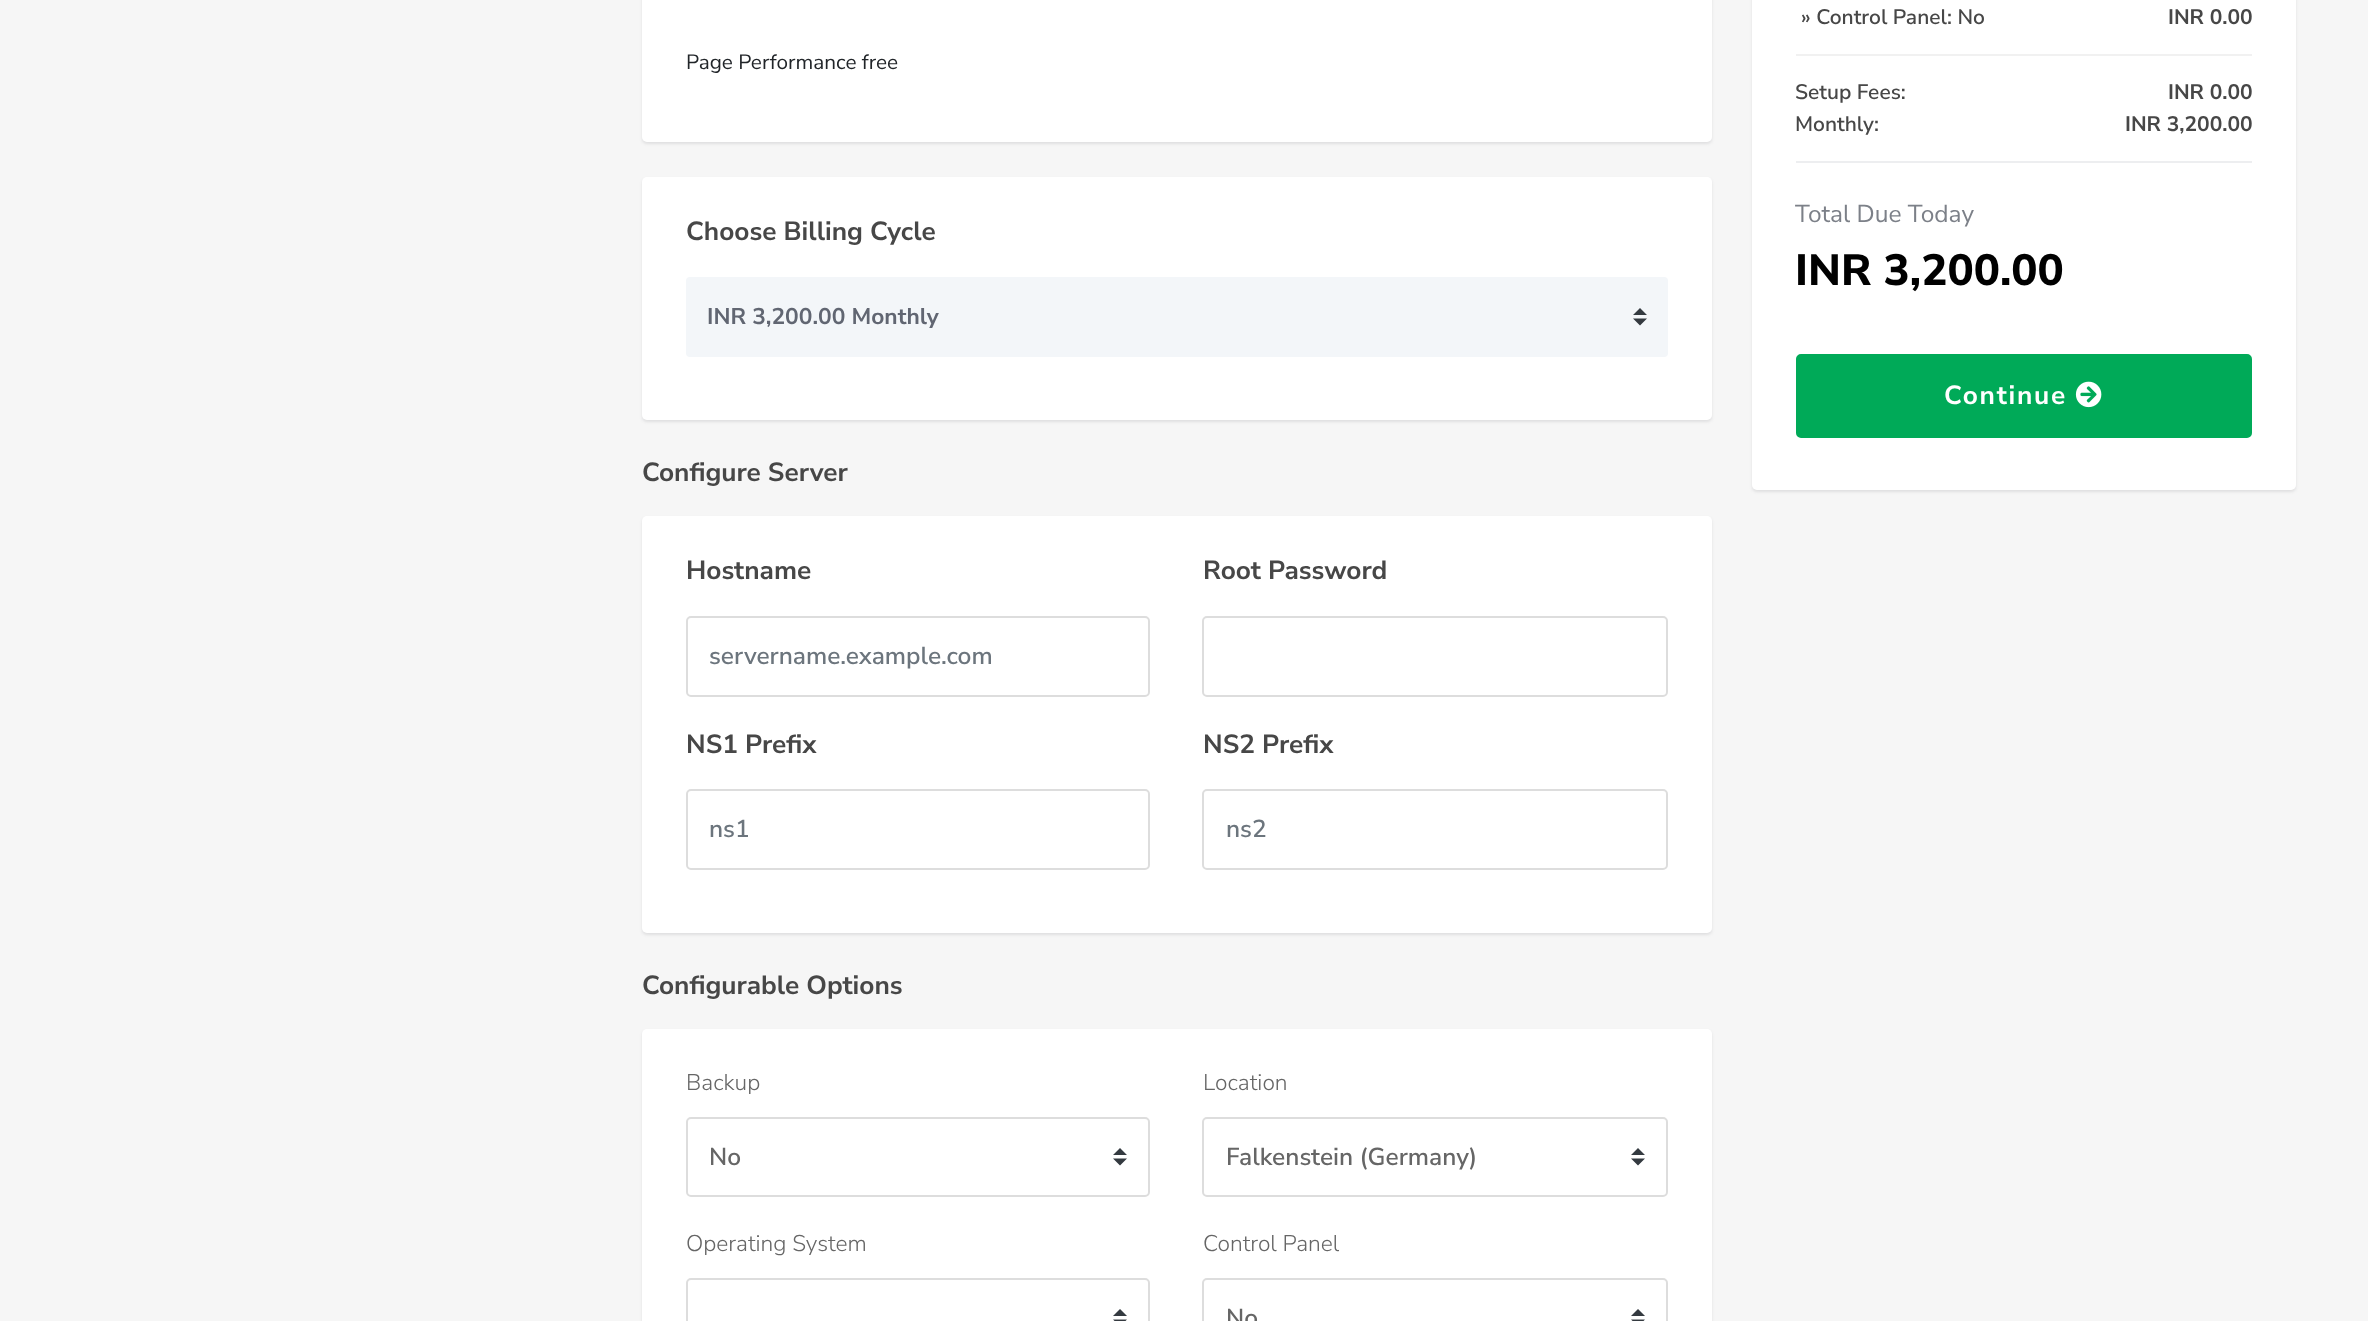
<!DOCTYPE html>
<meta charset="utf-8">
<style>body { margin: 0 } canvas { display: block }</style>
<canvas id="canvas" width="2368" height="1321"></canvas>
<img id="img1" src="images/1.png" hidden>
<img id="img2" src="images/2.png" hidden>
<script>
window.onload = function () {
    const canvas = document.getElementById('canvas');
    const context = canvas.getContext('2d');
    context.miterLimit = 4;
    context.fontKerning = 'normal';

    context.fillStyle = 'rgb(246, 246, 246)';
    context.fillRect(0, 0, 2368, 1321);
    context.fillStyle = 'rgba(42, 46, 54, 0.11)';
    context.filter = 'blur(1.5px)';
    context.beginPath();
    context.roundRect(642, -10, 1070, 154, 5);
    context.fill();
    context.filter = 'none';
    context.fillStyle = 'rgb(255, 255, 255)';
    context.beginPath();
    context.roundRect(642, -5, 1070, 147, 5);
    context.fill();
    context.fillStyle = 'rgba(42, 46, 54, 0.11)';
    context.filter = 'blur(1.5px)';
    context.beginPath();
    context.roundRect(642, 179, 1070, 243, 5);
    context.fill();
    context.filter = 'none';
    context.fillStyle = 'rgb(255, 255, 255)';
    context.beginPath();
    context.roundRect(642, 177, 1070, 243, 5);
    context.fill();
    context.fillStyle = 'rgb(243, 246, 249)';
    context.beginPath();
    context.roundRect(686, 277, 982, 80, 4);
    context.fill();
    context.fillStyle = 'rgb(52, 58, 64)';
    context.beginPath();
    context.moveTo(1640, 308);
    context.lineTo(1633, 315);
    context.lineTo(1647, 315);
    context.closePath();
    context.moveTo(1640, 325.5);
    context.lineTo(1633, 318.5);
    context.lineTo(1647, 318.5);
    context.closePath();
    context.fill();
    context.fillStyle = 'rgba(42, 46, 54, 0.11)';
    context.filter = 'blur(1.5px)';
    context.beginPath();
    context.roundRect(642, 518, 1070, 417, 5);
    context.fill();
    context.filter = 'none';
    context.fillStyle = 'rgb(255, 255, 255)';
    context.beginPath();
    context.roundRect(642, 516, 1070, 417, 5);
    context.fill();
    context.beginPath();
    context.roundRect(687, 617, 462, 79, 4);
    context.strokeStyle = 'rgb(221, 221, 221)';
    context.lineWidth = 2;
    context.stroke();
    context.beginPath();
    context.roundRect(1203, 617, 464, 79, 4);
    context.stroke();
    context.beginPath();
    context.roundRect(687, 790, 462, 79, 4);
    context.stroke();
    context.beginPath();
    context.roundRect(1203, 790, 464, 79, 4);
    context.stroke();
    context.fillStyle = 'rgba(42, 46, 54, 0.11)';
    context.filter = 'blur(1.5px)';
    context.beginPath();
    context.roundRect(642, 1031, 1070, 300, 5);
    context.fill();
    context.filter = 'none';
    context.fillStyle = 'rgb(255, 255, 255)';
    context.beginPath();
    context.roundRect(642, 1029, 1070, 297, 5);
    context.fill();
    context.fillStyle = 'rgb(52, 58, 64)';
    context.beginPath();
    context.moveTo(1120, 1148);
    context.lineTo(1113, 1155);
    context.lineTo(1127, 1155);
    context.closePath();
    context.moveTo(1120, 1165.5);
    context.lineTo(1113, 1158.5);
    context.lineTo(1127, 1158.5);
    context.closePath();
    context.fill();
    context.beginPath();
    context.roundRect(687, 1118, 462, 78, 4);
    context.stroke();
    context.beginPath();
    context.moveTo(1638, 1148);
    context.lineTo(1631, 1155);
    context.lineTo(1645, 1155);
    context.closePath();
    context.moveTo(1638, 1165.5);
    context.lineTo(1631, 1158.5);
    context.lineTo(1645, 1158.5);
    context.closePath();
    context.fill();
    context.beginPath();
    context.roundRect(1203, 1118, 464, 78, 4);
    context.stroke();
    context.drawImage(document.getElementById('img1'), 1113, 1309, 14, 12);
    context.beginPath();
    context.roundRect(687, 1279, 462, 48, 4);
    context.stroke();
    context.drawImage(document.getElementById('img1'), 1631, 1309, 14, 12);
    context.beginPath();
    context.roundRect(1203, 1279, 464, 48, 4);
    context.stroke();
    context.fillStyle = 'rgba(42, 46, 54, 0.11)';
    context.filter = 'blur(1.5px)';
    context.beginPath();
    context.roundRect(1752, -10, 544, 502, 5);
    context.fill();
    context.filter = 'none';
    context.fillStyle = 'rgb(255, 255, 255)';
    context.beginPath();
    context.roundRect(1752, -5, 544, 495, 5);
    context.fill();
    context.fillStyle = 'rgb(241, 241, 241)';
    context.fillRect(1796, 54, 456, 2);
    context.fillStyle = 'rgb(237, 238, 240)';
    context.fillRect(1796, 161, 456, 2);
    context.fillStyle = 'rgb(0, 170, 88)';
    context.beginPath();
    context.roundRect(1797, 355, 454, 82, 4);
    context.fill();
    context.strokeStyle = 'rgb(0, 170, 88)';
    context.stroke();
    context.drawImage(document.getElementById('img2'), 2075, 381, 27, 27);
    context.font = '20.75px Nunito Sans';
    context.fillStyle = 'rgb(33, 37, 41)';
    context.fillText('Page Performance free', 686, 69);
    context.font = 'bold 26.25px Nunito Sans';
    context.fillStyle = 'rgb(71, 71, 71)';
    context.fillText('Choose Billing Cycle', 686, 240);
    context.font = 'bold 22.75px Nunito Sans';
    context.fillStyle = 'rgb(97, 102, 114)';
    context.fillText('INR 3,200.00 Monthly', 707, 324);
    context.font = 'bold 26.25px Nunito Sans';
    context.fillStyle = 'rgb(71, 71, 71)';
    context.fillText('Configure Server', 642, 481);
    context.fillText('Hostname', 686, 579);
    context.font = '600 24.5px Nunito Sans';
    context.fillStyle = 'rgb(108, 117, 125)';
    context.fillText('servername.example.com', 709, 664);
    context.font = 'bold 26.25px Nunito Sans';
    context.fillStyle = 'rgb(71, 71, 71)';
    context.fillText('Root Password', 1203, 579);
    context.fillText('NS1 Prefix', 686, 753);
    context.font = '600 24.5px Nunito Sans';
    context.fillStyle = 'rgb(108, 117, 125)';
    context.fillText('ns1', 709, 837);
    context.font = 'bold 26.25px Nunito Sans';
    context.fillStyle = 'rgb(71, 71, 71)';
    context.fillText('NS2 Prefix', 1203, 753);
    context.font = '600 24.5px Nunito Sans';
    context.fillStyle = 'rgb(108, 117, 125)';
    context.fillText('ns2', 1226, 837);
    context.font = 'bold 26.25px Nunito Sans';
    context.fillStyle = 'rgb(71, 71, 71)';
    context.fillText('Configurable Options', 642, 994);
    context.font = '300 22.75px Nunito Sans';
    context.fillStyle = 'rgb(102, 102, 102)';
    context.fillText('Backup', 686, 1090);
    context.font = '600 24.5px Nunito Sans';
    context.fillText('No', 709, 1165);
    context.font = '300 22.75px Nunito Sans';
    context.fillText('Location', 1203, 1090);
    context.font = '600 24.5px Nunito Sans';
    context.fillText('Falkenstein (Germany)', 1226, 1165);
    context.font = '300 22.75px Nunito Sans';
    context.fillText('Operating System', 686, 1251);
    context.fillText('Control Panel', 1203, 1251);
    context.font = '600 24.5px Nunito Sans';
    context.fillText('No', 1226, 1326);
    context.font = '600 21px Nunito Sans';
    context.fillStyle = 'rgb(71, 71, 71)';
    context.fillText('» Control Panel: No', 1801, 24);
    context.font = 'bold 21px Nunito Sans';
    context.fillText('INR 0.00', 2168, 24);
    context.font = '600 21px Nunito Sans';
    context.fillText('Setup Fees:', 1795, 99);
    context.font = 'bold 21px Nunito Sans';
    context.fillText('INR 0.00', 2168, 99);
    context.font = '600 21px Nunito Sans';
    context.fillText('Monthly:', 1795, 131);
    context.font = 'bold 21px Nunito Sans';
    context.fillText('INR 3,200.00', 2125, 131);
    context.font = '24.5px Nunito Sans';
    context.fillStyle = 'rgb(124, 128, 136)';
    context.fillText('Total Due Today', 1795, 222);
    context.font = '800 43.75px Nunito Sans';
    context.fillStyle = 'rgb(0, 0, 0)';
    context.fillText('INR 3,200.00', 1795, 285);
    context.letterSpacing = '1.75px';
    context.font = 'bold 26.25px Nunito Sans';
    context.fillStyle = 'rgb(255, 255, 255)';
    context.fillText('Continue', 1944, 404);
};
</script>
